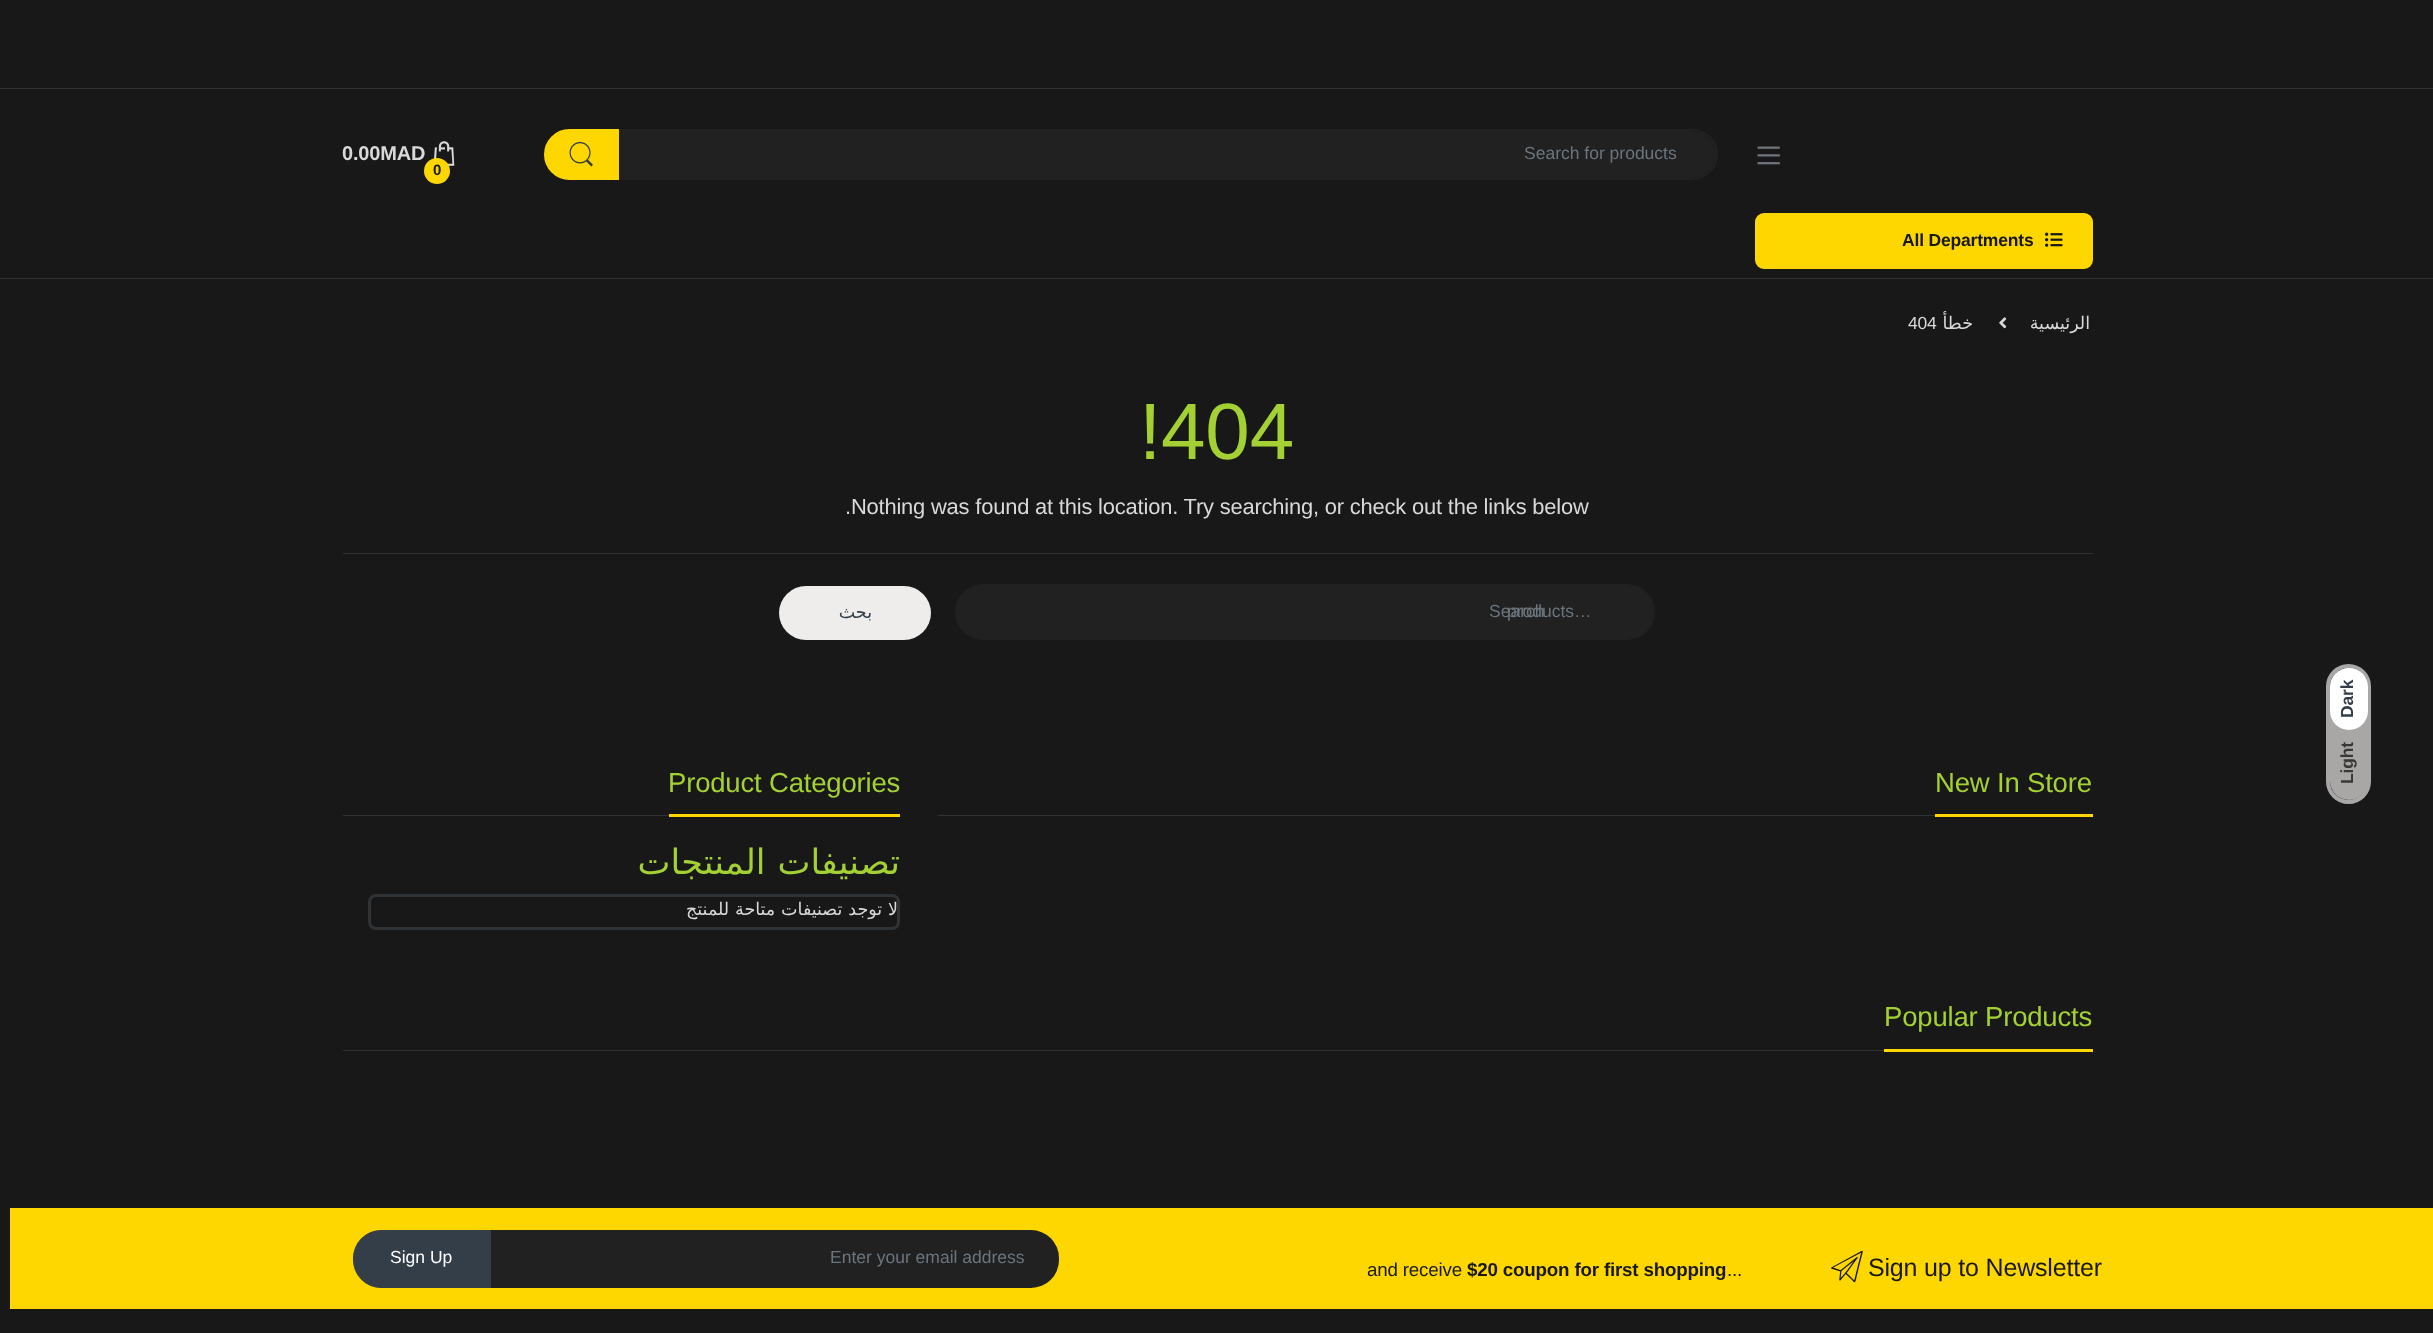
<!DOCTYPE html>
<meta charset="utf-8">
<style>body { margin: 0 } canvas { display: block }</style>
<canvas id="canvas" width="2433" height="1333"></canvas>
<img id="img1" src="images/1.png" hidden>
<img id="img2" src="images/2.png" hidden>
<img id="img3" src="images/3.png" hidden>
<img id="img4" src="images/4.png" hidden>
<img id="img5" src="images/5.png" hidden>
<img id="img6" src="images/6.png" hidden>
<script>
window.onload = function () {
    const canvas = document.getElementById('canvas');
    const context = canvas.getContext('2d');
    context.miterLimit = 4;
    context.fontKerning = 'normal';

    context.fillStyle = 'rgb(24, 24, 24)';
    context.fillRect(0, 0, 2433, 1333);
    context.fillStyle = 'rgb(47, 51, 54)';
    context.fillRect(0, 88, 2433, 1);
    context.fillRect(0, 278, 2433, 1);
    context.drawImage(document.getElementById('img1'), 434, 141, 21, 25);
    context.fillStyle = 'rgb(33, 33, 33)';
    context.beginPath();
    context.roundRect(616, 131, 1099, 47, [0, 23.5, 23.5, 0]);
    context.fill();
    context.beginPath();
    context.moveTo(616, 129);
    context.lineTo(1692, 129);
    context.bezierCurveTo(1706, 129, 1718, 140, 1718, 154);
    context.bezierCurveTo(1718, 169, 1706, 180, 1692, 180);
    context.lineTo(616, 180);
    context.closePath();
    context.moveTo(616, 131);
    context.lineTo(1692, 131);
    context.bezierCurveTo(1705, 131, 1715, 142, 1715, 154);
    context.bezierCurveTo(1715, 167, 1705, 178, 1692, 178);
    context.lineTo(616, 178);
    context.closePath();
    context.fill('evenodd');
    context.fillStyle = 'rgb(254, 215, 0)';
    context.beginPath();
    context.roundRect(545.5, 130.5, 72, 48, [24, 0, 0, 24]);
    context.fill();
    context.strokeStyle = 'rgb(254, 215, 0)';
    context.lineWidth = 3;
    context.stroke();
    context.drawImage(document.getElementById('img2'), 569, 141, 24, 26);
    context.drawImage(document.getElementById('img3'), 1757, 146, 23, 19);
    context.beginPath();
    context.roundRect(1755, 213, 338, 56, 9);
    context.fill();
    context.drawImage(document.getElementById('img4'), 2045, 232, 18, 15);
    context.drawImage(document.getElementById('img5'), 1999, 317, 8, 12);
    context.fillStyle = 'rgb(47, 51, 54)';
    context.fillRect(343, 553, 1750, 1);
    context.fillStyle = 'rgb(239, 236, 236)';
    context.beginPath();
    context.roundRect(779, 586, 152, 54, 27);
    context.fill();
    context.fillStyle = 'rgb(33, 33, 33)';
    context.beginPath();
    context.roundRect(956, 585, 698, 54, 26);
    context.fill();
    context.beginPath();
    context.roundRect(955.5, 584.5, 699, 55, 27.5);
    context.strokeStyle = 'rgb(33, 33, 33)';
    context.lineWidth = 1;
    context.stroke();
    context.fillStyle = 'rgb(47, 51, 54)';
    context.fillRect(343, 815, 326, 1);
    context.fillStyle = 'rgb(254, 215, 0)';
    context.fillRect(669, 814, 231, 3);
    context.beginPath();
    context.roundRect(369.5, 895.5, 529, 33, 6.5);
    context.strokeStyle = 'rgb(47, 51, 54)';
    context.lineWidth = 3;
    context.stroke();
    context.fillStyle = 'rgb(47, 51, 54)';
    context.fillRect(938, 815, 997, 1);
    context.fillStyle = 'rgb(254, 215, 0)';
    context.fillRect(1935, 814, 158, 3);
    context.fillStyle = 'rgb(47, 51, 54)';
    context.fillRect(343, 1050, 1541, 1);
    context.fillStyle = 'rgb(254, 215, 0)';
    context.fillRect(1884, 1049, 209, 3);
    context.fillRect(10, 1208, 2423, 101);
    context.fillStyle = 'rgb(33, 33, 33)';
    context.beginPath();
    context.roundRect(490, 1230, 569, 58, [0, 28, 28, 0]);
    context.fill();
    context.fillStyle = 'rgb(51, 62, 72)';
    context.beginPath();
    context.roundRect(353.5, 1230.5, 137, 57, [27.5, 0, 0, 27.5]);
    context.fill();
    context.strokeStyle = 'rgb(51, 62, 72)';
    context.lineWidth = 1;
    context.stroke();
    context.drawImage(document.getElementById('img6'), 1831, 1250, 32, 33);
    context.beginPath();
    context.roundRect(2328, 666, 41, 136, 20.5);
    context.strokeStyle = 'rgb(169, 166, 166)';
    context.lineWidth = 4;
    context.stroke();
    context.fillStyle = 'rgb(169, 166, 166)';
    context.beginPath();
    context.roundRect(2330, 668, 38, 132, 19);
    context.fill();
    context.fillStyle = 'rgb(255, 255, 255)';
    context.beginPath();
    context.roundRect(2330, 668, 38, 62, 19);
    context.fill();
    context.letterSpacing = '-0.18px';
    context.font = 'bold 20px Liberation Sans';
    context.fillStyle = 'rgb(217, 217, 217)';
    context.fillText('0.00MAD', 342, 160);
    context.fillStyle = 'rgb(254, 215, 0)';
    context.beginPath();
    context.arc(437, 171, 13, 0, 2 * Math.PI);
    context.fill();
    context.font = 'bold 15px Liberation Sans';
    context.fillStyle = 'rgb(24, 24, 24)';
    context.fillText('0', 433, 175);
    context.letterSpacing = '0px';
    context.font = '17.5px Liberation Sans';
    context.fillStyle = 'rgb(108, 117, 125)';
    context.fillText('Search for products', 1524, 159);
    context.letterSpacing = '-0.18px';
    context.font = 'bold 17.5px Liberation Sans';
    context.fillStyle = 'rgb(24, 24, 24)';
    context.fillText('All Departments', 1902, 246);
    context.font = '17.5px Liberation Sans';
    context.fillStyle = 'rgb(217, 217, 217)';
    context.fillText('404', 1908, 329);
    context.direction = 'rtl';
    context.font = '17.5px DejaVu Sans';
    context.fillText('خطأ', 1973, 329);
    context.fillText('الرئيسية', 2090, 329);
    context.direction = 'ltr';
    context.font = '80px Liberation Sans';
    context.fillStyle = 'rgb(163, 209, 51)';
    context.fillText('!404', 1139, 459);
    context.font = '21.9px Liberation Sans';
    context.fillStyle = 'rgb(217, 217, 217)';
    context.fillText('.Nothing was found at this location. Try searching, or check out the links below', 845, 514);
    context.letterSpacing = '0px';
    context.direction = 'rtl';
    context.font = '17.5px DejaVu Sans';
    context.fillStyle = 'rgb(51, 62, 72)';
    context.fillText('بحث', 872, 618);
    context.direction = 'ltr';
    context.font = '17.5px Liberation Sans';
    context.fillStyle = 'rgb(108, 117, 125)';
    context.fillText('Search', 1489, 617);
    context.fillText('products…', 1507, 617);
    context.letterSpacing = '-0.18px';
    context.font = '27.5px Liberation Sans';
    context.fillStyle = 'rgb(163, 209, 51)';
    context.fillText('Product Categories', 668, 792);
    context.wordSpacing = '1px';
    context.direction = 'rtl';
    context.font = '35px DejaVu Sans';
    context.fillText('تصنيفات المنتجات', 900, 874);
    context.wordSpacing = '0.5px';
    context.font = '17.5px DejaVu Sans';
    context.fillStyle = 'rgb(217, 217, 217)';
    context.fillText('لا توجد تصنيفات متاحة للمنتج', 898, 915);
    context.wordSpacing = '0px';
    context.direction = 'ltr';
    context.font = '27.5px Liberation Sans';
    context.fillStyle = 'rgb(163, 209, 51)';
    context.fillText('New In Store', 1935, 792);
    context.fillText('Popular Products', 1884, 1026);
    context.letterSpacing = '0px';
    context.font = '17.5px Liberation Sans';
    context.fillStyle = 'rgb(255, 255, 255)';
    context.fillText('Sign Up', 390, 1263);
    context.fillStyle = 'rgb(108, 117, 125)';
    context.fillText('Enter your email address', 830, 1263);
    context.letterSpacing = '-0.18px';
    context.font = '18.75px Liberation Sans';
    context.fillStyle = 'rgb(24, 24, 24)';
    context.fillText('and receive', 1367, 1276);
    context.font = 'bold 18.75px Liberation Sans';
    context.fillText('$20 coupon for first shopping', 1467, 1276);
    context.font = '18.75px Liberation Sans';
    context.fillText('...', 1727, 1276);
    context.font = '25px Liberation Sans';
    context.fillText('Sign up to Newsletter', 1868, 1276);
    context.font = 'bold 17.5px Liberation Sans';
    context.fillStyle = 'rgb(51, 62, 72)';
    context.save();
    context.translate(2353, 718);
    context.rotate(-90 * Math.PI / 180);
    context.fillText('Dark', 0, 0);
    context.restore();
    context.fillStyle = 'rgb(56, 56, 56)';
    context.save();
    context.translate(2353, 784);
    context.rotate(-90 * Math.PI / 180);
    context.fillText('Light', 0, 0);
    context.restore();
};
</script>
